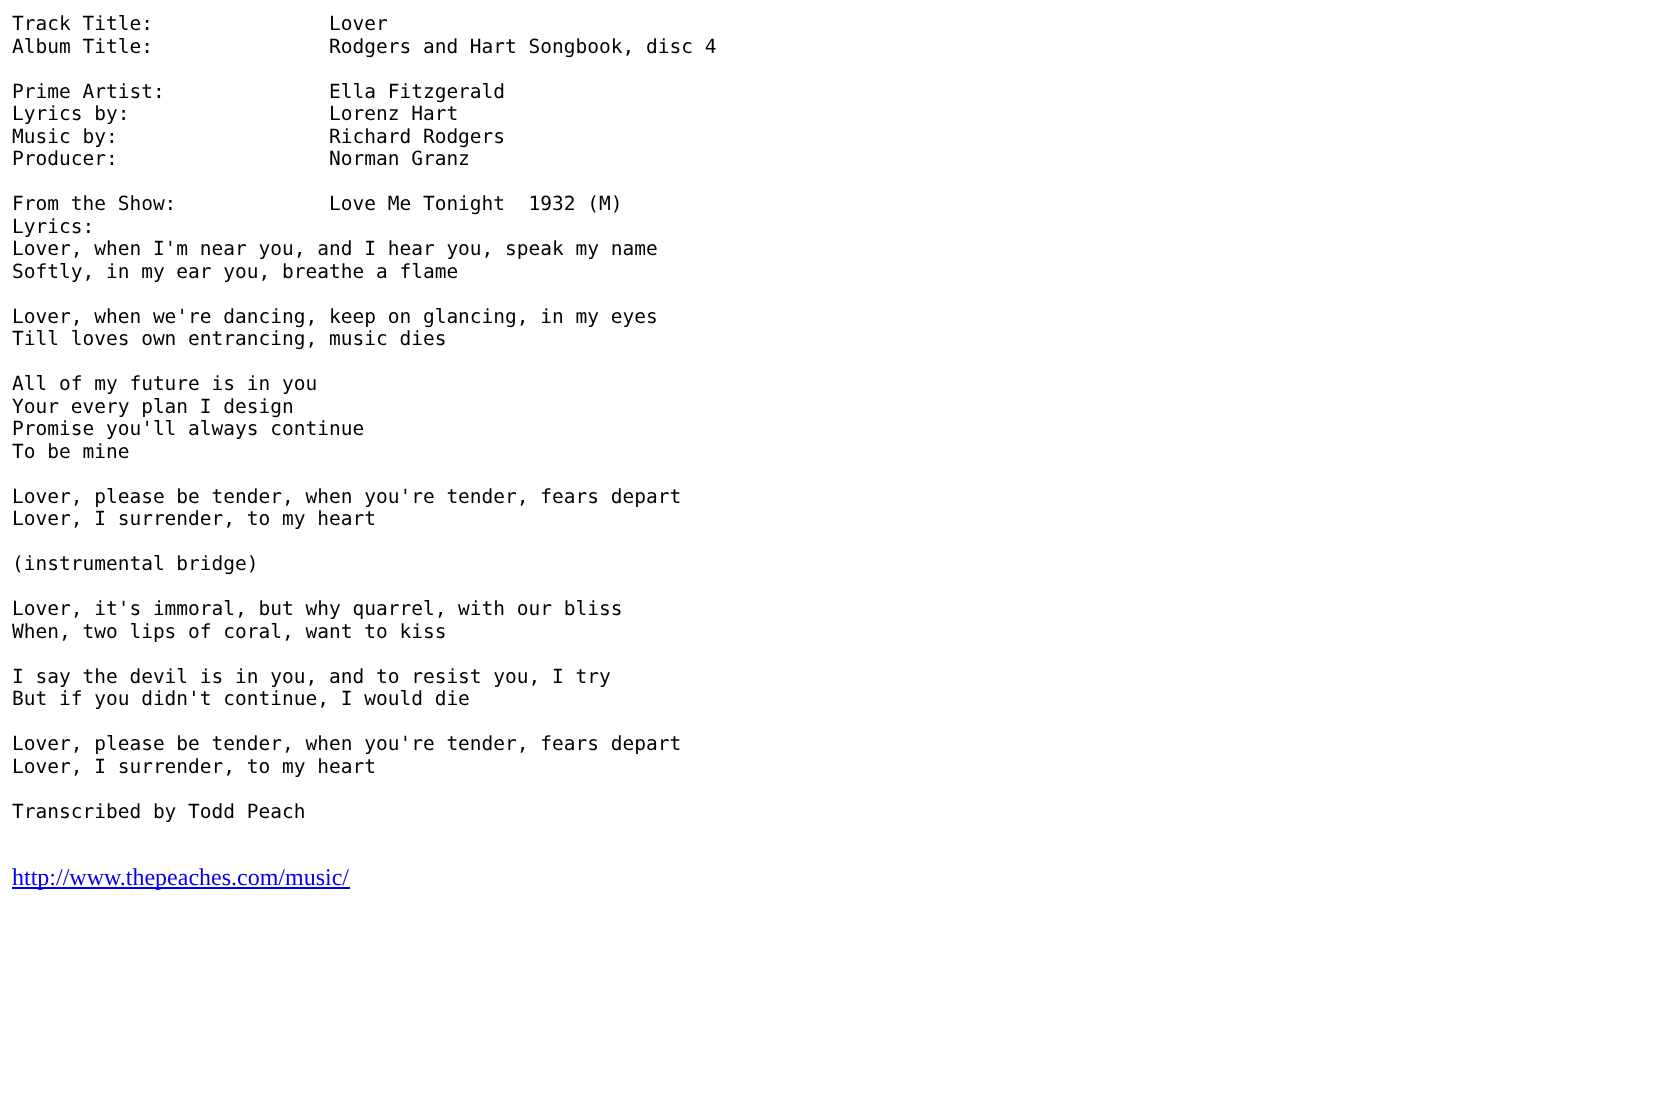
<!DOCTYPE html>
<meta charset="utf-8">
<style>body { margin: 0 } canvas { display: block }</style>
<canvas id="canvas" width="1678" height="1099"></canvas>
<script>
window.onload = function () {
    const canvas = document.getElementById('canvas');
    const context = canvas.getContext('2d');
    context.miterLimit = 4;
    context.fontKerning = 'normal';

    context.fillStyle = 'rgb(255, 255, 255)';
    context.fillRect(0, 0, 1678, 1099);
    context.fillStyle = 'rgb(0, 0, 238)';
    context.fillRect(12, 887, 338, 2);
    context.font = '19.5px DejaVu Sans Mono';
    context.fillStyle = 'rgb(0, 0, 0)';
    context.fillText('Track Title:               Lover', 12, 30);
    context.fillText('Album Title:               Rodgers and Hart Songbook, disc 4', 12, 53);
    context.fillText('Prime Artist:              Ella Fitzgerald', 12, 98);
    context.fillText('Lyrics by:                 Lorenz Hart', 12, 120);
    context.fillText('Music by:                  Richard Rodgers', 12, 143);
    context.fillText('Producer:                  Norman Granz', 12, 165);
    context.fillText('From the Show:             Love Me Tonight  1932 (M)', 12, 210);
    context.fillText('Lyrics:', 12, 233);
    context.fillText('Lover, when I\'m near you, and I hear you, speak my name', 12, 255);
    context.fillText('Softly, in my ear you, breathe a flame', 12, 278);
    context.fillText('Lover, when we\'re dancing, keep on glancing, in my eyes', 12, 323);
    context.fillText('Till loves own entrancing, music dies', 12, 345);
    context.fillText('All of my future is in you', 12, 390);
    context.fillText('Your every plan I design', 12, 413);
    context.fillText('Promise you\'ll always continue', 12, 435);
    context.fillText('To be mine', 12, 458);
    context.fillText('Lover, please be tender, when you\'re tender, fears depart', 12, 503);
    context.fillText('Lover, I surrender, to my heart', 12, 525);
    context.fillText('(instrumental bridge)', 12, 570);
    context.fillText('Lover, it\'s immoral, but why quarrel, with our bliss', 12, 615);
    context.fillText('When, two lips of coral, want to kiss', 12, 638);
    context.fillText('I say the devil is in you, and to resist you, I try', 12, 683);
    context.fillText('But if you didn\'t continue, I would die', 12, 705);
    context.fillText('Lover, please be tender, when you\'re tender, fears depart', 12, 750);
    context.fillText('Lover, I surrender, to my heart', 12, 773);
    context.fillText('Transcribed by Todd Peach', 12, 818);
    context.font = '24px Liberation Serif';
    context.fillStyle = 'rgb(0, 0, 238)';
    context.fillText('http://www.thepeaches.com/music/', 12, 885);
};
</script>
